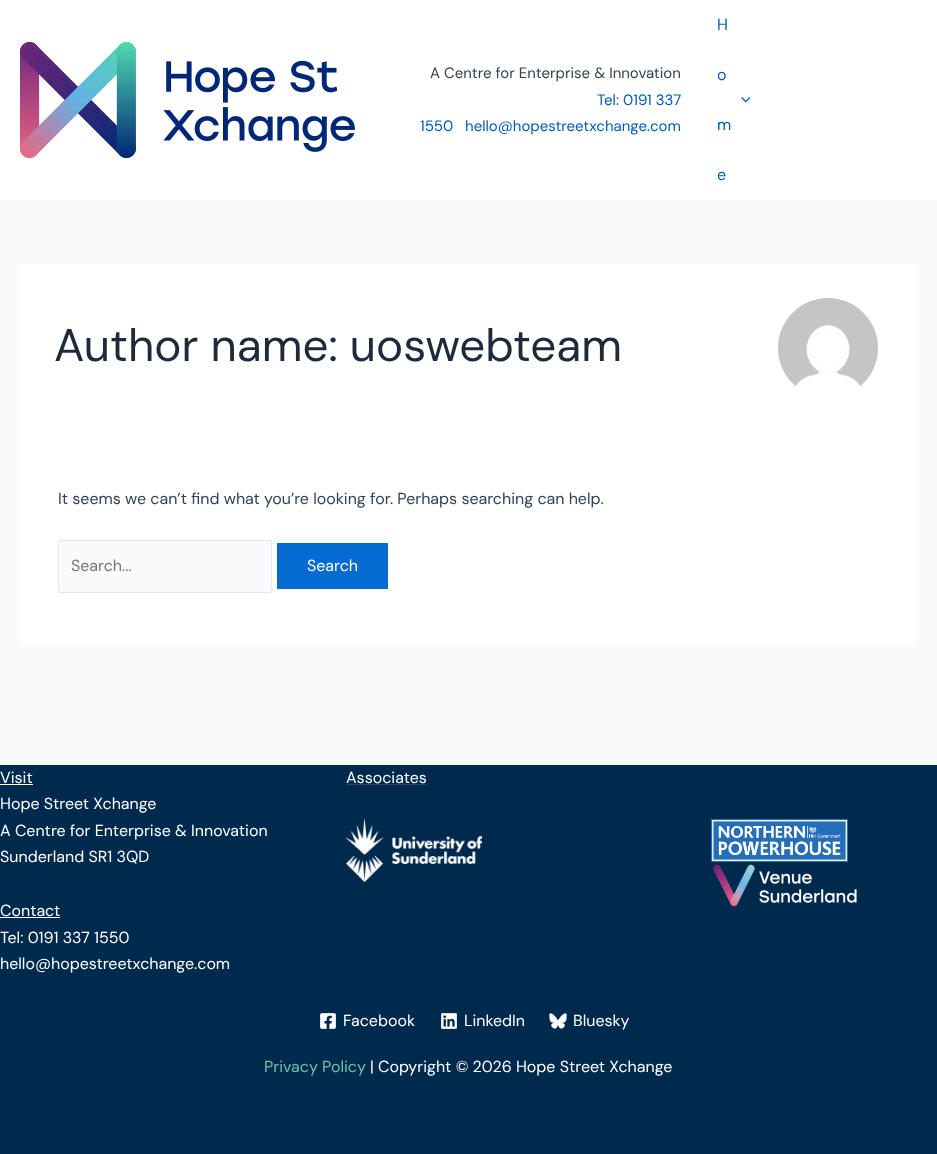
<!DOCTYPE html>
<meta charset="utf-8">
<style>body { margin: 0 } canvas { display: block }</style>
<canvas id="canvas" width="937" height="1154"></canvas>
<img id="img1" src="images/1.png" hidden>
<img id="img2" src="images/2.png" hidden>
<img id="img3" src="images/3.png" hidden>
<img id="img4" src="images/4.png" hidden>
<img id="img5" src="images/5.png" hidden>
<img id="img6" src="images/6.png" hidden>
<img id="img7" src="images/7.png" hidden>
<img id="img8" src="images/8.png" hidden>
<img id="img9" src="images/9.png" hidden>
<script>
window.onload = function () {
    const canvas = document.getElementById('canvas');
    const context = canvas.getContext('2d');
    context.miterLimit = 4;
    context.fontKerning = 'normal';

    context.fillStyle = 'rgb(249, 250, 251)';
    context.fillRect(0, 0, 937, 1154);
    context.fillStyle = 'rgb(255, 255, 255)';
    context.fillRect(0, 0, 937, 200);
    context.drawImage(document.getElementById('img1'), 20, 42, 335, 116);
    context.drawImage(document.getElementById('img2'), 741, 97, 10, 6);
    context.fillRect(20, 264, 897, 382);
    context.drawImage(document.getElementById('img3'), 778, 298, 100, 89);
    context.fillStyle = 'rgb(249, 250, 251)';
    context.beginPath();
    context.roundRect(58.5, 540.5, 213, 52, 1.5);
    context.fill();
    context.strokeStyle = 'rgb(226, 232, 240)';
    context.stroke();
    context.fillStyle = 'rgb(4, 107, 210)';
    context.fillRect(277, 543, 111, 46);
    context.fillStyle = 'rgb(0, 41, 78)';
    context.fillRect(0, 765, 937, 389);
    context.fillStyle = 'rgb(255, 255, 255)';
    context.fillRect(0, 784, 33, 1);
    context.fillRect(0, 917, 60, 1);
    context.fillStyle = 'rgb(51, 65, 85)';
    context.fillRect(346, 784, 80, 1);
    context.drawImage(document.getElementById('img4'), 346, 819, 136, 63);
    context.drawImage(document.getElementById('img5'), 711, 819, 137, 43);
    context.drawImage(document.getElementById('img6'), 713, 864, 144, 43);
    context.drawImage(document.getElementById('img7'), 320, 1013, 16, 16);
    context.drawImage(document.getElementById('img8'), 441, 1013, 16, 16);
    context.drawImage(document.getElementById('img9'), 549, 1013, 18, 16);
    context.font = '15px DM Sans';
    context.fillText('A Centre for Enterprise & Innovation', 430, 78);
    context.fillStyle = 'rgb(4, 92, 180)';
    context.fillText('Tel: 0191 337', 597, 105);
    context.fillText('1550', 420, 131);
    context.fillText('hello@hopestreetxchange.com', 465, 131);
    context.font = '16px DM Sans';
    context.fillText('H', 717, 30);
    context.fillText('o', 717, 80);
    context.fillText('m', 717, 130);
    context.fillText('e', 717, 180);
    context.font = '45.75px DM Sans';
    context.fillStyle = 'rgb(30, 41, 59)';
    context.fillText('Author name: uoswebteam', 54, 361);
    context.font = '16px DM Sans';
    context.fillStyle = 'rgb(51, 65, 85)';
    context.fillText('It seems we can’t find what you’re looking for. Perhaps searching can help.', 58, 504);
    context.fillStyle = 'rgb(117, 117, 117)';
    context.fillText('Search...', 71, 571);
    context.fillStyle = 'rgb(255, 255, 255)';
    context.fillText('Search', 307, 571);
    context.fillText('Visit', 0, 783);
    context.fillText('Hope Street Xchange', 0, 809);
    context.fillText('A Centre for Enterprise & Innovation', 0, 836);
    context.fillText('Sunderland SR1 3QD', 0, 862);
    context.fillText('Contact', 0, 916);
    context.fillText('Tel: 0191 337 1550', 0, 943);
    context.fillText('hello@hopestreetxchange.com', 0, 969);
    context.fillText('Associates', 346, 783);
    context.fillText('Facebook', 343, 1026);
    context.fillText('LinkedIn', 464, 1026);
    context.fillText('Bluesky', 573, 1026);
    context.fillStyle = 'rgb(103, 196, 167)';
    context.fillText('Privacy Policy', 264, 1072);
    context.fillStyle = 'rgb(255, 255, 255)';
    context.fillText('| Copyright © 2026 Hope Street Xchange', 370, 1072);
};
</script>
